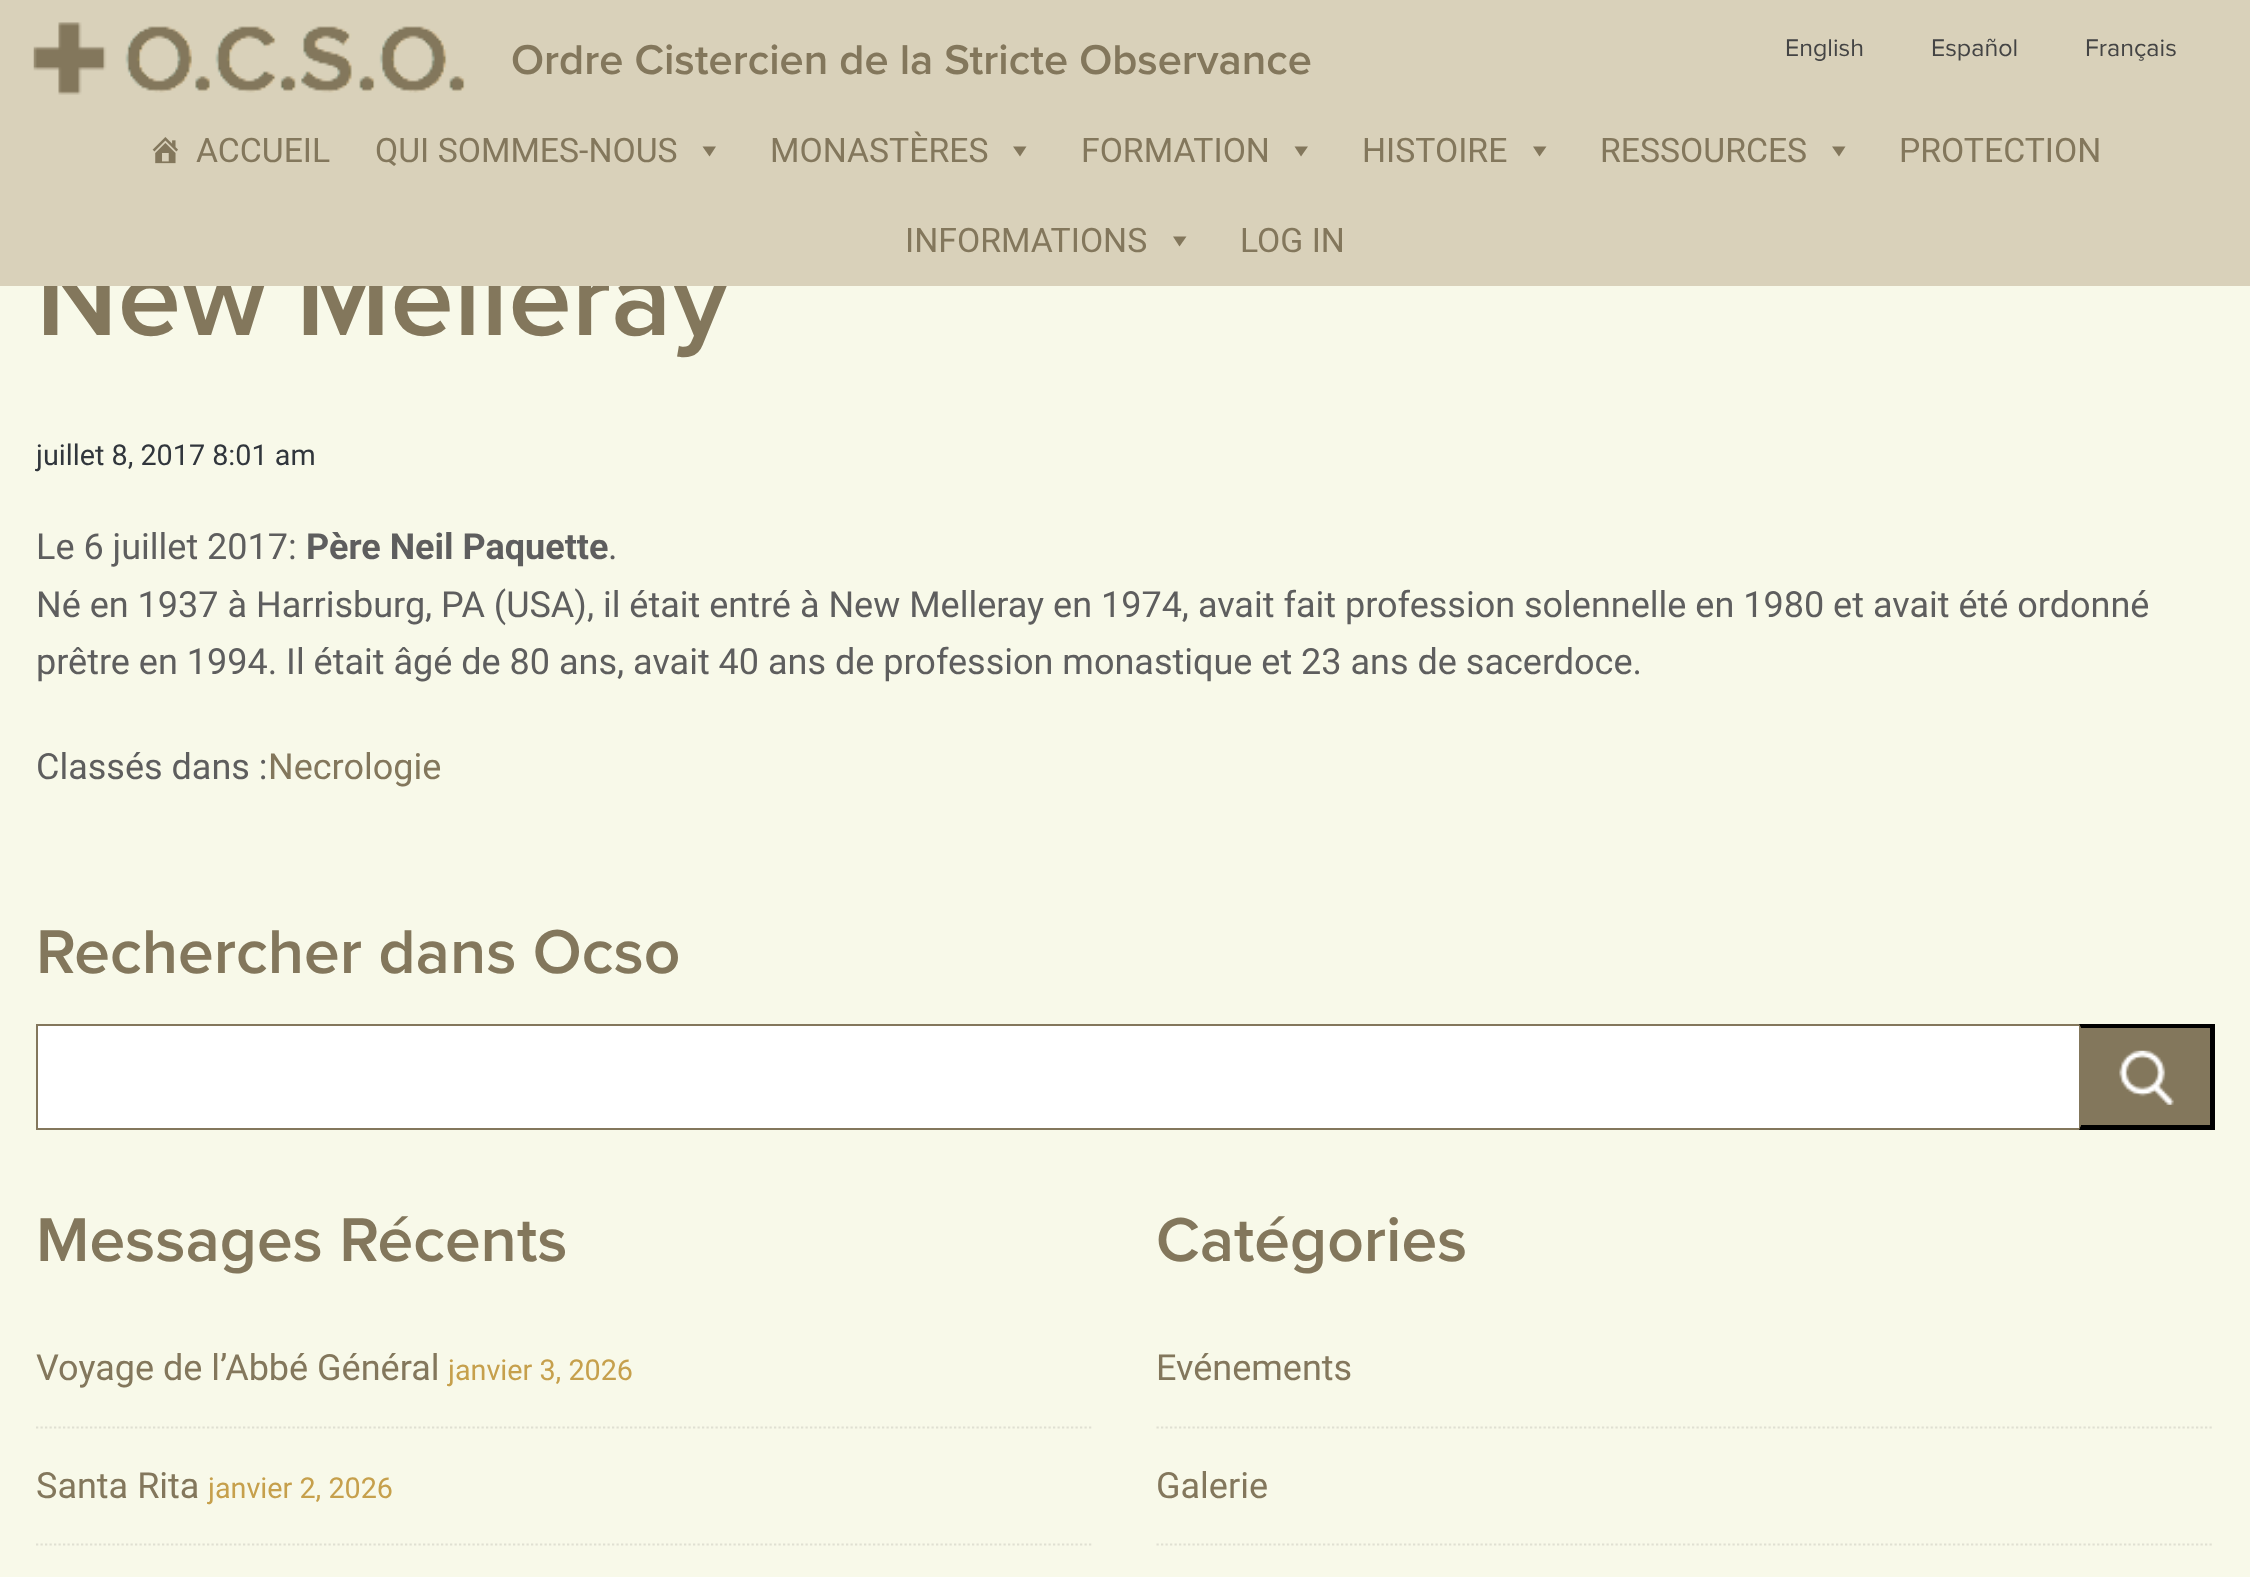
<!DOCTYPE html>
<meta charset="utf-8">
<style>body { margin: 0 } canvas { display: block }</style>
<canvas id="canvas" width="2250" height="1577"></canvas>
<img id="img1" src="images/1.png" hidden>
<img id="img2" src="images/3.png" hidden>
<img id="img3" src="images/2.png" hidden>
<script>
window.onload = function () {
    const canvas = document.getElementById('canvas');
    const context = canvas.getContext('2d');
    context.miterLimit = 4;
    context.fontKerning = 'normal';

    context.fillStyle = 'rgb(248, 249, 233)';
    context.fillRect(0, 0, 2250, 1577);
    context.fillStyle = 'rgb(217, 209, 186)';
    context.fillRect(0, 0, 2250, 106);
    context.drawImage(document.getElementById('img1'), 33, 22, 432, 73);
    context.fillStyle = 'rgb(255, 255, 255)';
    context.fillRect(38, 1026, 2041, 102);
    context.strokeStyle = 'rgb(131, 119, 92)';
    context.lineWidth = 2;
    context.strokeRect(37, 1025, 2176, 104);
    context.fillStyle = 'rgb(131, 119, 92)';
    context.fillRect(2079, 1026, 131, 102);
    context.fillStyle = 'rgb(0, 0, 0)';
    context.beginPath();
    context.moveTo(2079, 1024);
    context.lineTo(2214, 1024);
    context.lineTo(2210, 1028);
    context.lineTo(2081, 1028);
    context.closePath();
    context.fill();
    context.fillRect(2210, 1024, 5, 106);
    context.beginPath();
    context.moveTo(2214, 1130);
    context.lineTo(2079, 1130);
    context.lineTo(2081, 1125);
    context.lineTo(2210, 1125);
    context.closePath();
    context.fill();
    context.fillStyle = 'rgb(131, 119, 92)';
    context.beginPath();
    context.moveTo(2079, 1130);
    context.lineTo(2079, 1024);
    context.lineTo(2081, 1028);
    context.lineTo(2081, 1125);
    context.closePath();
    context.fill();
    context.drawImage(document.getElementById('img2'), 2119, 1050, 55, 55);
    context.beginPath();
    context.moveTo(36, 1427.5);
    context.lineTo(1093.5, 1427.5);
    context.strokeStyle = 'rgb(223, 224, 210)';
    context.lineWidth = 2.2;
    context.setLineDash([2.25, 2.25]);
    context.stroke();
    context.beginPath();
    context.moveTo(36, 1544.5);
    context.lineTo(1093.5, 1544.5);
    context.stroke();
    context.beginPath();
    context.moveTo(1156.5, 1427.5);
    context.lineTo(2214, 1427.5);
    context.stroke();
    context.beginPath();
    context.moveTo(1156.5, 1544.5);
    context.lineTo(2214, 1544.5);
    context.stroke();
    context.font = '600 43.25px Proxima Nova';
    context.fillText('Ordre Cistercien de la Stricte Observance', 511, 74);
    context.font = '25px Proxima Nova';
    context.fillStyle = 'rgb(68, 68, 68)';
    context.fillText('English', 1785, 56);
    context.fillText('Español', 1931, 56);
    context.fillText('Français', 2085, 56);
    context.font = '600 113.5px Proxima Nova';
    context.fillStyle = 'rgb(131, 119, 92)';
    context.fillText('New Melleray', 36, 335);
    context.fillStyle = 'rgb(217, 209, 186)';
    context.fillRect(0, 106, 2250, 180);
    context.font = '33.75px Roboto';
    context.fillStyle = 'rgb(131, 119, 92)';
    context.fillText('LOG IN', 1240, 252);
    context.beginPath();
    context.moveTo(1186.5, 236.5);
    context.lineTo(1179.5, 246.5);
    context.lineTo(1173, 236.5);
    context.closePath();
    context.fill();
    context.fillText('INFORMATIONS', 905, 252);
    context.fillText('PROTECTION', 1899, 162);
    context.beginPath();
    context.moveTo(1845.5, 146.5);
    context.lineTo(1839, 156.5);
    context.lineTo(1832, 146.5);
    context.closePath();
    context.fill();
    context.fillText('RESSOURCES', 1600, 162);
    context.beginPath();
    context.moveTo(1546.5, 146.5);
    context.lineTo(1539.5, 156.5);
    context.lineTo(1533, 146.5);
    context.closePath();
    context.fill();
    context.fillText('HISTOIRE', 1362, 162);
    context.beginPath();
    context.moveTo(1308, 146.5);
    context.lineTo(1301, 156.5);
    context.lineTo(1294.5, 146.5);
    context.closePath();
    context.fill();
    context.fillText('FORMATION', 1081, 162);
    context.beginPath();
    context.moveTo(1026.5, 146.5);
    context.lineTo(1020, 156.5);
    context.lineTo(1013, 146.5);
    context.closePath();
    context.fill();
    context.fillText('MONASTÈRES', 770, 162);
    context.beginPath();
    context.moveTo(716, 146.5);
    context.lineTo(709.5, 156.5);
    context.lineTo(702.5, 146.5);
    context.closePath();
    context.fill();
    context.fillText('QUI SOMMES-NOUS', 375, 162);
    context.fillText('ACCUEIL', 196, 162);
    context.drawImage(document.getElementById('img3'), 152, 137, 26, 27);
    context.font = '28.75px Roboto';
    context.fillStyle = 'rgb(49, 54, 60)';
    context.fillText('juillet 8, 2017 8:01 am', 36, 465);
    context.font = '36px Roboto';
    context.fillStyle = 'rgb(94, 94, 94)';
    context.fillText('Le 6 juillet 2017:', 36, 559);
    context.font = 'bold 36px Roboto';
    context.fillText('Père Neil Paquette', 306, 559);
    context.font = '36px Roboto';
    context.fillText('.', 608, 559);
    context.fillText('Né en 1937 à Harrisburg, PA (USA), il était entré à New Melleray en 1974, avait fait profession solennelle en 1980 et avait été ordonné', 36, 617);
    context.fillText('prêtre en 1994. Il était âgé de 80 ans, avait 40 ans de profession monastique et 23 ans de sacerdoce.', 36, 674);
    context.fillText('Classés dans :', 36, 779);
    context.fillStyle = 'rgb(131, 119, 92)';
    context.fillText('Necrologie', 268, 779);
    context.font = '600 64px Proxima Nova';
    context.fillText('Rechercher dans Ocso', 36, 973);
    context.fillText('Messages Récents', 36, 1261);
    context.font = '36px Roboto';
    context.fillText('Voyage de l’Abbé Général', 36, 1380);
    context.font = '28.75px Roboto';
    context.fillStyle = 'rgb(198, 160, 76)';
    context.fillText('janvier 3, 2026', 448, 1380);
    context.font = '36px Roboto';
    context.fillStyle = 'rgb(131, 119, 92)';
    context.fillText('Santa Rita', 36, 1498);
    context.font = '28.75px Roboto';
    context.fillStyle = 'rgb(198, 160, 76)';
    context.fillText('janvier 2, 2026', 208, 1498);
    context.font = '600 64px Proxima Nova';
    context.fillStyle = 'rgb(131, 119, 92)';
    context.fillText('Catégories', 1156, 1261);
    context.font = '36px Roboto';
    context.fillText('Evénements', 1156, 1380);
    context.fillText('Galerie', 1156, 1498);
};
</script>
